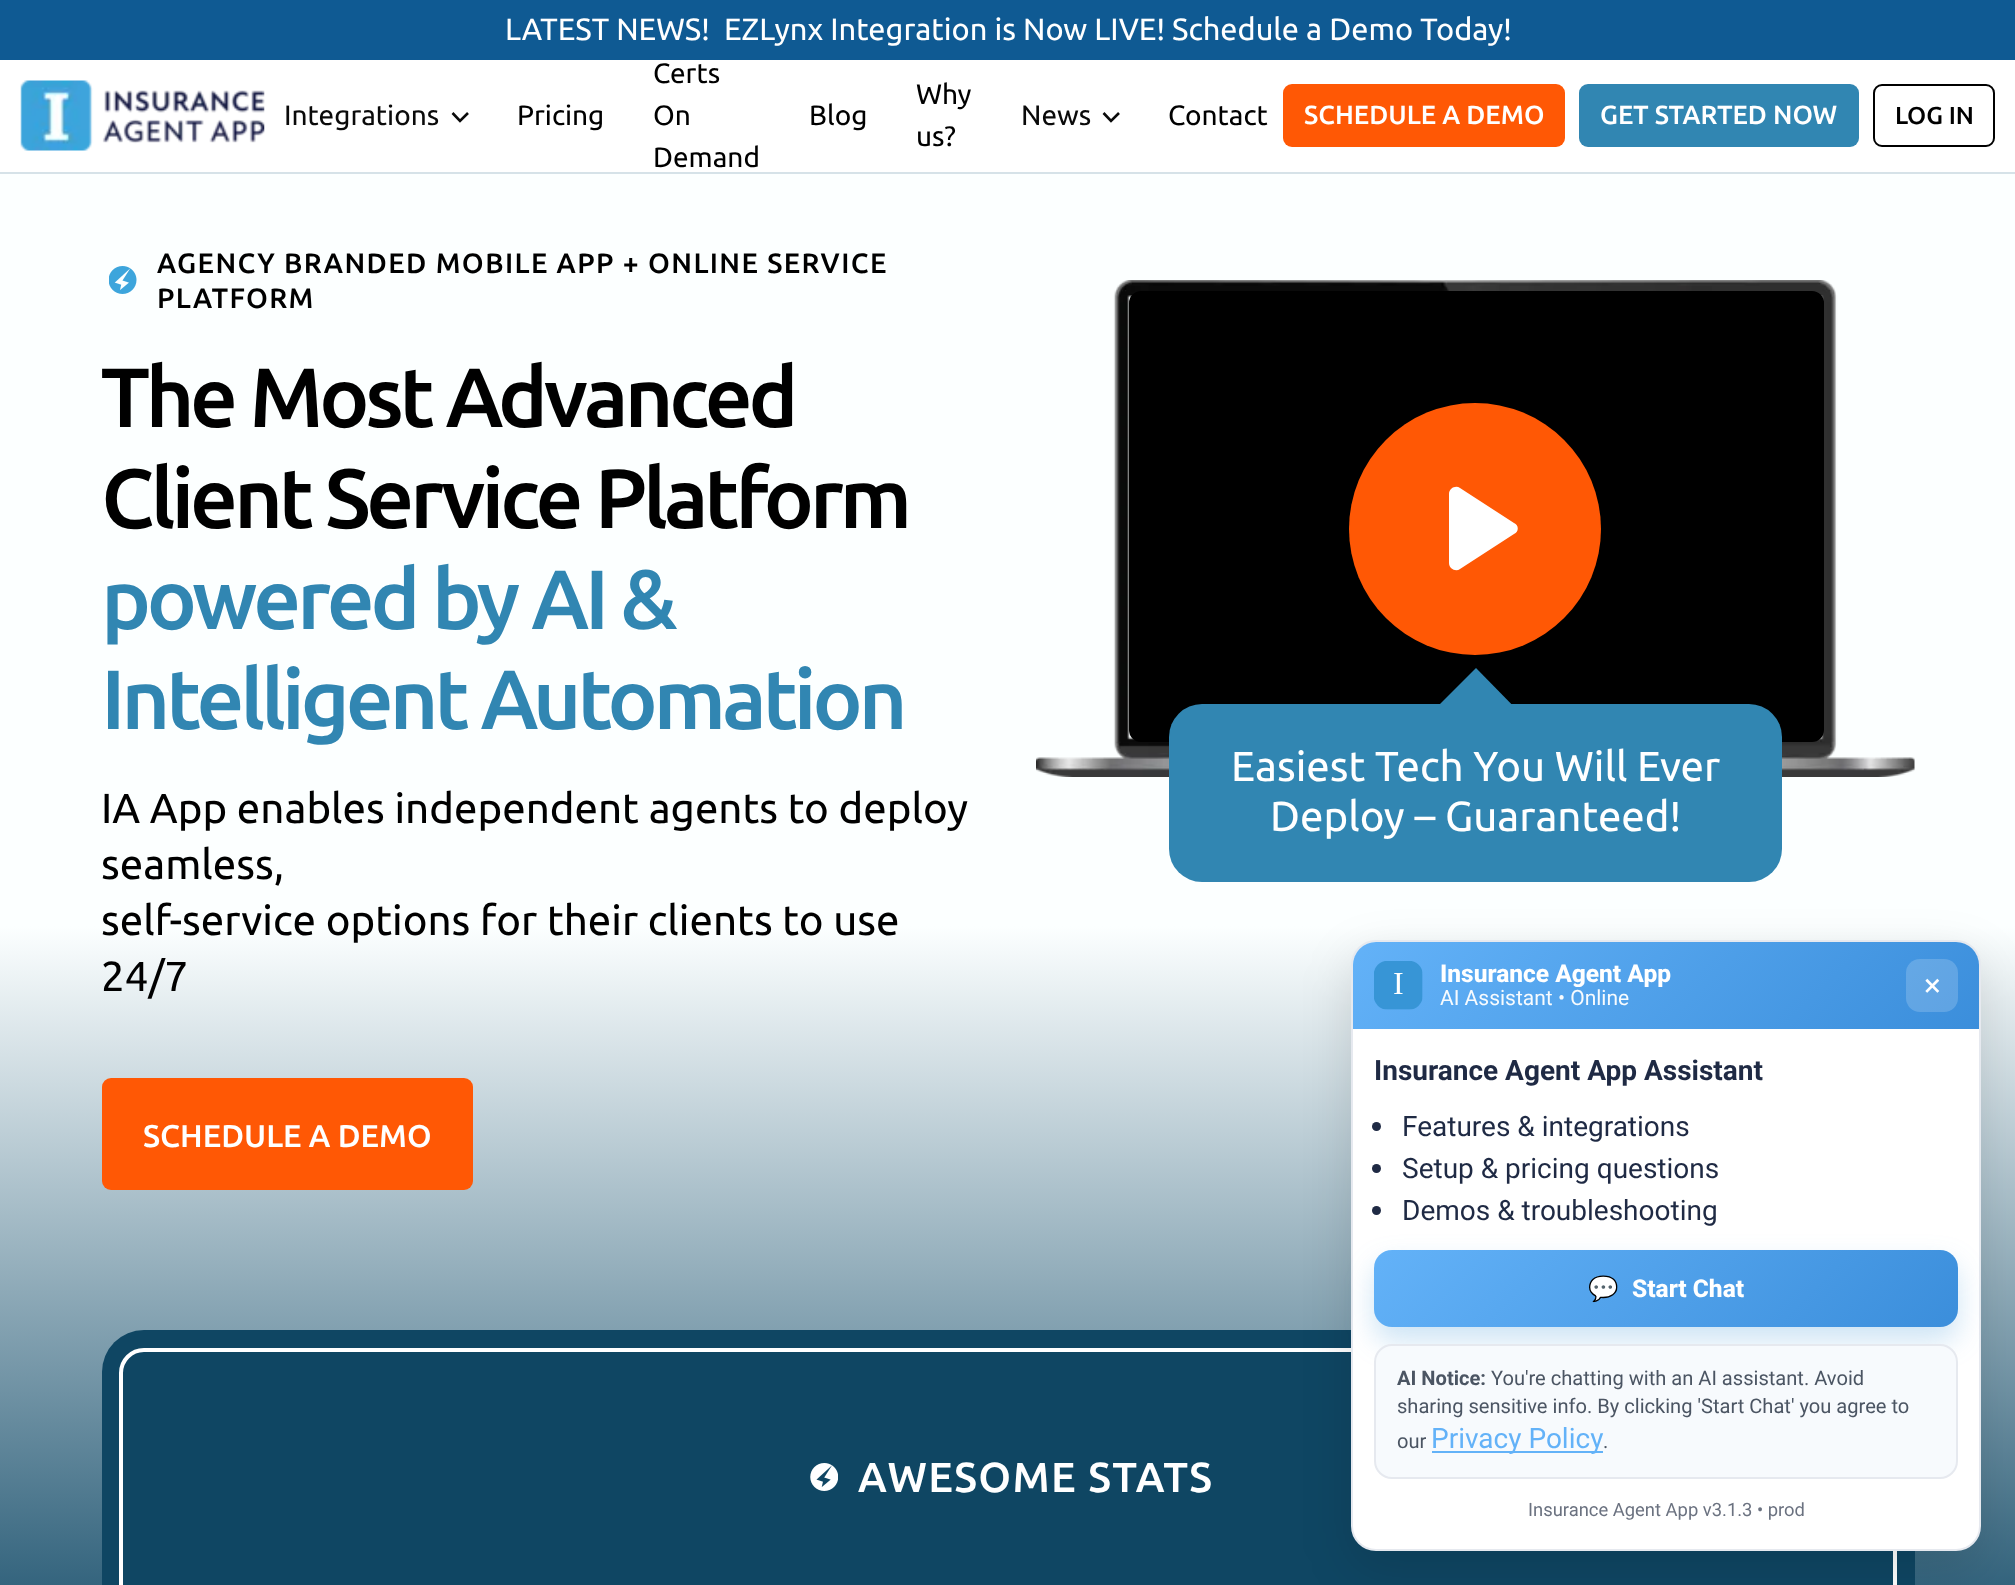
<!DOCTYPE html>
<meta charset="utf-8">
<style>body { margin: 0 } canvas { display: block }</style>
<canvas id="canvas" width="2015" height="1585"></canvas>
<img id="img1" src="images/1.png" hidden>
<img id="img2" src="images/2.png" hidden>
<img id="img3" src="images/3.png" hidden>
<img id="img4" src="images/4.png" hidden>
<img id="img5" src="images/5.png" hidden>
<script>
window.onload = function () {
    const canvas = document.getElementById('canvas');
    const context = canvas.getContext('2d');
    context.miterLimit = 4;
    context.fontKerning = 'normal';
    let gradient;

    context.fillStyle = 'rgb(255, 255, 255)';
    context.fillRect(0, 0, 2015, 1585);
    context.fillStyle = 'rgb(15, 90, 147)';
    context.fillRect(0, 0, 2015, 60);
    context.fillStyle = 'rgb(214, 226, 232)';
    context.fillRect(0, 172, 2015, 2);
    context.drawImage(document.getElementById('img1'), 20, 80, 245, 71);
    context.beginPath();
    context.moveTo(452.5, 113);
    context.lineTo(460, 121);
    context.lineTo(468, 113);
    context.strokeStyle = 'rgb(10, 10, 10)';
    context.lineWidth = 2.6;
    context.stroke();
    context.beginPath();
    context.moveTo(1103.5, 113);
    context.lineTo(1111, 121);
    context.lineTo(1119, 113);
    context.stroke();
    context.fillStyle = 'rgb(255, 88, 5)';
    context.beginPath();
    context.roundRect(1283, 84, 282, 63, 9);
    context.fill();
    context.fillStyle = 'rgb(49, 134, 178)';
    context.beginPath();
    context.roundRect(1579, 84, 280, 63, 9);
    context.fill();
    context.beginPath();
    context.roundRect(1874, 85, 120, 61, 8);
    context.strokeStyle = 'rgb(0, 0, 0)';
    context.lineWidth = 2;
    context.stroke();
    gradient = context.createLinearGradient(1008, 0, 1008, 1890);
    gradient.addColorStop(0.49, 'rgb(252, 255, 255)');
    gradient.addColorStop(0.93, 'rgb(0, 60, 92)');
    context.fillStyle = gradient;
    context.fillRect(0, 174, 2015, 1411);
    context.drawImage(document.getElementById('img2'), 109, 266, 28, 28);
    context.fillStyle = 'rgb(255, 88, 5)';
    context.beginPath();
    context.roundRect(102, 1078, 371, 112, 9);
    context.fill();
    context.drawImage(document.getElementById('img3'), 1036, 280, 879, 497);
    context.fillStyle = 'rgb(0, 0, 0)';
    context.beginPath();
    context.roundRect(1129, 291, 695, 451, 12);
    context.fill();
    context.fillStyle = 'rgb(255, 88, 5)';
    context.beginPath();
    context.arc(1475, 529, 126, 0, 2 * Math.PI);
    context.fill();
    context.fillStyle = 'rgb(255, 255, 255)';
    context.beginPath();
    context.moveTo(1460, 488);
    context.lineTo(1514, 523);
    context.bezierCurveTo(1519, 525, 1519, 532, 1514, 534);
    context.lineTo(1460, 569);
    context.bezierCurveTo(1456, 572, 1449, 569, 1449, 563);
    context.lineTo(1449, 494);
    context.bezierCurveTo(1449, 488, 1456, 485, 1460, 488);
    context.closePath();
    context.fill();
    context.fillStyle = 'rgb(49, 134, 178)';
    context.beginPath();
    context.moveTo(1476, 668);
    context.lineTo(1525, 718);
    context.lineTo(1476, 767);
    context.lineTo(1426, 718);
    context.closePath();
    context.fill();
    context.beginPath();
    context.roundRect(1169, 704, 613, 178, 33);
    context.fill();
    context.fillStyle = 'rgb(15, 70, 99)';
    context.beginPath();
    context.roundRect(102, 1330, 1813, 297, 42);
    context.fill();
    context.beginPath();
    context.roundRect(121, 1350, 1774, 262, 23);
    context.strokeStyle = 'rgb(255, 255, 255)';
    context.lineWidth = 4;
    context.stroke();
    context.drawImage(document.getElementById('img4'), 810, 1463, 28, 28);
    context.fillStyle = 'rgba(0, 0, 0, 0.12)';
    context.filter = 'blur(24.5px)';
    context.beginPath();
    context.roundRect(1351, 957, 630, 611, 25);
    context.fill();
    context.filter = 'none';
    context.fillStyle = 'rgb(255, 255, 255)';
    context.beginPath();
    context.roundRect(1352, 941, 628, 609, 24);
    context.fill();
    context.strokeStyle = 'rgb(230, 233, 239)';
    context.lineWidth = 2;
    context.stroke();
    gradient = context.createLinearGradient(1488, 807, 1845, 1164);
    gradient.addColorStop(0, 'rgb(99, 178, 248)');
    gradient.addColorStop(1, 'rgb(59, 142, 219)');
    context.fillStyle = gradient;
    context.beginPath();
    context.roundRect(1353, 942, 626, 87, [23, 23, 0, 0]);
    context.fill();
    context.drawImage(document.getElementById('img5'), 1374, 961, 49, 49);
    context.fillStyle = 'rgba(255, 255, 255, 0.18)';
    context.beginPath();
    context.roundRect(1906, 959, 52, 53, 14);
    context.fill();
    context.fillStyle = 'rgb(31, 42, 68)';
    context.beginPath();
    context.arc(1376.5, 1126.5, 4.5, 0, 2 * Math.PI);
    context.fill();
    context.beginPath();
    context.arc(1376.5, 1168.5, 4.5, 0, 2 * Math.PI);
    context.fill();
    context.beginPath();
    context.arc(1376.5, 1210.5, 4.5, 0, 2 * Math.PI);
    context.fill();
    context.fillStyle = 'rgba(55, 149, 214, 0.25)';
    context.filter = 'blur(14px)';
    context.beginPath();
    context.roundRect(1374, 1264, 584, 77, 18);
    context.fill();
    context.filter = 'none';
    gradient = context.createLinearGradient(1501, 1123, 1831, 1453);
    gradient.addColorStop(0, 'rgb(99, 178, 248)');
    gradient.addColorStop(1, 'rgb(59, 142, 219)');
    context.fillStyle = gradient;
    context.beginPath();
    context.roundRect(1374, 1250, 584, 77, 18);
    context.fill();
    context.fillStyle = 'rgb(247, 250, 253)';
    context.beginPath();
    context.roundRect(1375, 1345, 582, 133, 17);
    context.fill();
    context.stroke();
    context.fillStyle = 'rgb(99, 178, 248)';
    context.fillRect(1432, 1451, 171, 2);
    context.font = '30.8px Ubuntu';
    context.fillStyle = 'rgb(255, 255, 255)';
    context.fillText('LATEST NEWS!  EZLynx Integration is Now LIVE! Schedule a Demo Today!', 505, 40);
    context.font = '28px Ubuntu';
    context.fillStyle = 'rgb(10, 10, 10)';
    context.fillText('Integrations', 284, 125);
    context.fillStyle = 'rgb(0, 0, 0)';
    context.fillText('Pricing', 517, 125);
    context.fillText('Certs', 653, 83);
    context.fillText('On', 653, 125);
    context.fillText('Demand', 653, 167);
    context.fillText('Blog', 809, 125);
    context.fillText('Why', 916, 104);
    context.fillText('us?', 916, 146);
    context.fillStyle = 'rgb(10, 10, 10)';
    context.fillText('News', 1021, 125);
    context.fillStyle = 'rgb(0, 0, 0)';
    context.fillText('Contact', 1168, 125);
    context.font = '500 26.25px Ubuntu';
    context.fillStyle = 'rgb(255, 255, 255)';
    context.fillText('SCHEDULE A DEMO', 1304, 124);
    context.fillText('GET STARTED NOW', 1600, 124);
    context.font = '500 24.5px Ubuntu';
    context.fillStyle = 'rgb(0, 0, 0)';
    context.fillText('LOG IN', 1895, 124);
    context.letterSpacing = '1.4px';
    context.font = '500 28px Ubuntu';
    context.fillText('AGENCY BRANDED MOBILE APP + ONLINE SERVICE', 157, 273);
    context.fillText('PLATFORM', 157, 308);
    context.letterSpacing = '-4.2px';
    context.font = '500 84px Ubuntu';
    context.fillText('The Most Advanced', 101, 427);
    context.fillText('Client Service Platform', 101, 528);
    context.fillStyle = 'rgb(49, 134, 178)';
    context.fillText('powered by AI &', 101, 629);
    context.fillText('Intelligent Automation', 101, 729);
    context.letterSpacing = '0px';
    context.font = '42px Ubuntu';
    context.fillStyle = 'rgb(0, 0, 0)';
    context.fillText('IA App enables independent agents to deploy', 101, 823);
    context.fillText('seamless,', 101, 879);
    context.fillText('self-service options for their clients to use', 101, 935);
    context.fillText('24/7', 101, 991);
    context.font = '500 31.5px Ubuntu';
    context.fillStyle = 'rgb(255, 255, 255)';
    context.fillText('SCHEDULE A DEMO', 143, 1147);
    context.font = '42px Ubuntu';
    context.fillText('Easiest Tech You Will Ever', 1231, 781);
    context.fillText('Deploy – Guaranteed!', 1270, 831);
    context.letterSpacing = '1.4px';
    context.font = '500 42px Ubuntu';
    context.fillText('AWESOME STATS', 858, 1492);
    context.letterSpacing = '0px';
    context.font = '800 24.5px Roboto';
    context.fillText('Insurance Agent App', 1440, 982);
    context.font = '21px Roboto';
    context.fillStyle = 'rgb(247, 251, 254)';
    context.fillText('AI Assistant • Online', 1440, 1005);
    context.font = '31.5px Roboto';
    context.fillStyle = 'rgb(255, 255, 255)';
    context.fillText('×', 1924, 996);
    context.font = 'bold 28px Roboto';
    context.fillStyle = 'rgb(31, 42, 68)';
    context.fillText('Insurance Agent App Assistant', 1374, 1080);
    context.font = '28px Roboto';
    context.fillText('Features & integrations', 1402, 1136);
    context.fillText('Setup & pricing questions', 1402, 1178);
    context.fillText('Demos & troubleshooting', 1402, 1220);
    context.font = 'bold 24.5px Noto Color Emoji';
    context.fillStyle = 'rgb(255, 255, 255)';
    context.fillText('💬', 1588, 1297);
    context.font = '800 24.5px Roboto';
    context.fillText('Start Chat', 1632, 1297);
    context.font = 'bold 20.1px Roboto';
    context.fillStyle = 'rgb(75, 85, 99)';
    context.fillText('AI Notice:', 1397, 1385);
    context.font = '20.1px Roboto';
    context.fillText('You\'re chatting with an AI assistant. Avoid', 1491, 1385);
    context.fillText('sharing sensitive info. By clicking \'Start Chat\' you agree to', 1397, 1413);
    context.fillText('our', 1397, 1448);
    context.font = '28px Roboto';
    context.fillStyle = 'rgb(99, 178, 248)';
    context.fillText('Privacy Policy', 1431, 1448);
    context.font = '20.1px Roboto';
    context.fillStyle = 'rgb(75, 85, 99)';
    context.fillText('.', 1603, 1448);
    context.font = '18.4px Roboto';
    context.fillStyle = 'rgb(107, 114, 128)';
    context.fillText('Insurance Agent App v3.1.3 • prod', 1528, 1516);
};
</script>
